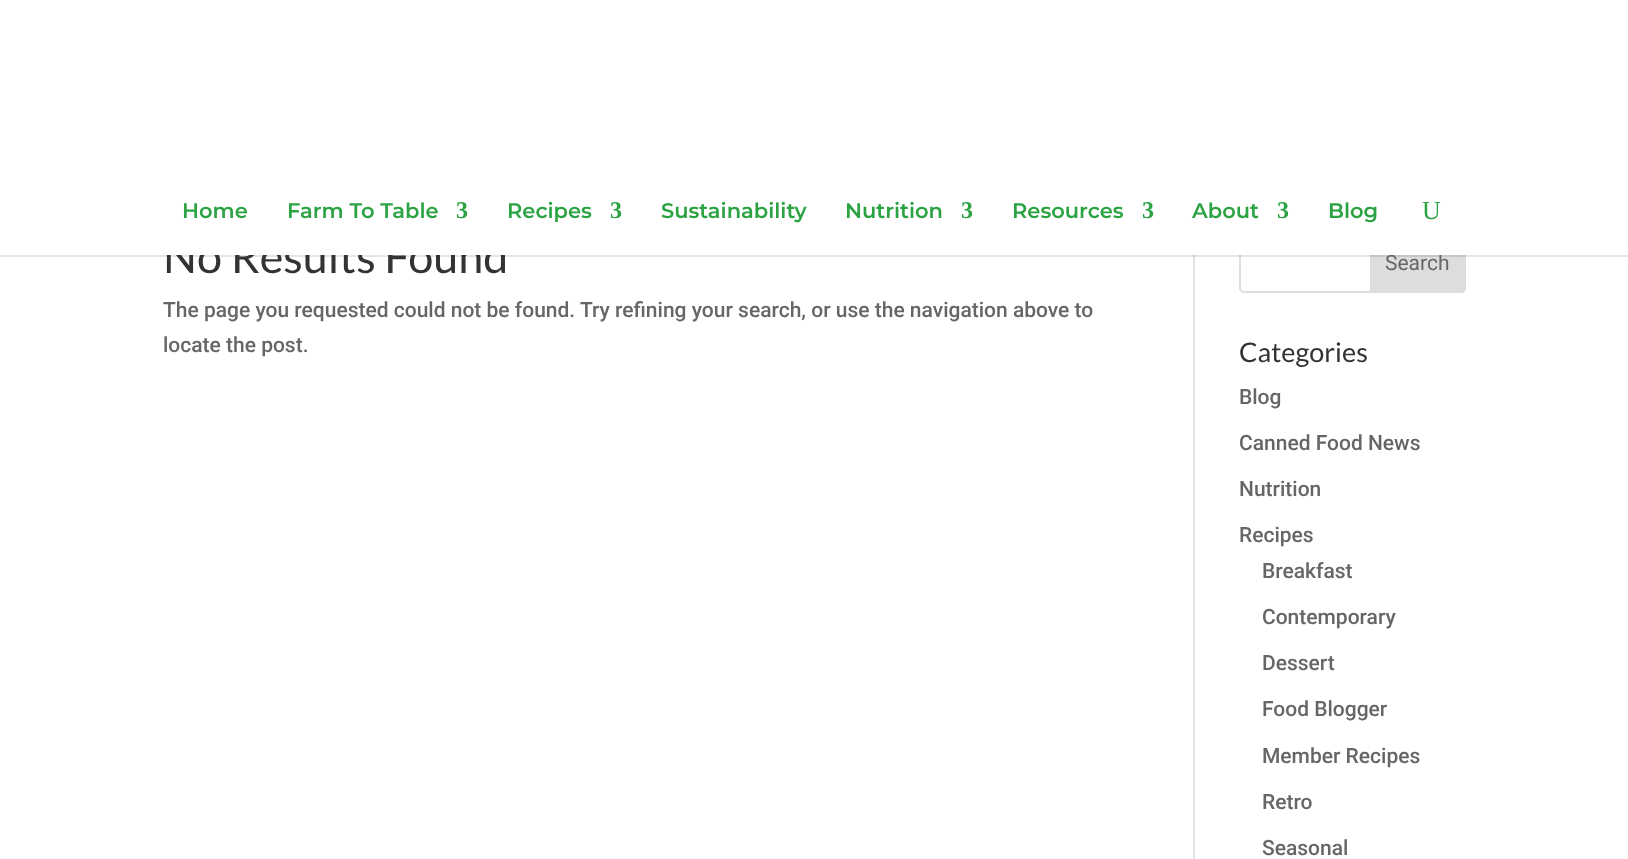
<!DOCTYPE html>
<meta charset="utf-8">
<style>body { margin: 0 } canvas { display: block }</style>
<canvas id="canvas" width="1628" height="859"></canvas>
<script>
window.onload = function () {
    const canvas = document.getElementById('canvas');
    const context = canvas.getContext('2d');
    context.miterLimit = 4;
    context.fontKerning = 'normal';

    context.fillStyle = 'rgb(255, 255, 255)';
    context.fillRect(0, 0, 1628, 859);
    context.beginPath();
    context.roundRect(1240, 234, 225, 58, 4);
    context.strokeStyle = 'rgb(221, 221, 221)';
    context.lineWidth = 2;
    context.stroke();
    context.fillStyle = 'rgb(221, 221, 221)';
    context.beginPath();
    context.roundRect(1371, 234, 94, 58, [0, 4, 4, 0]);
    context.fill();
    context.stroke();
    context.fillStyle = 'rgb(226, 226, 226)';
    context.fillRect(1193, 255, 2, 604);
    context.fillStyle = 'rgba(0, 0, 0, 0.1)';
    context.fillRect(0, 255, 1628, 2);
    context.font = '100 21px Montserrat';
    context.fillStyle = 'rgb(44, 163, 67)';
    context.fillText('Home', 182, 218);
    context.fillText('Farm To Table', 287, 218);
    context.font = 'bold 24px Liberation Serif';
    context.fillText('3', 456, 218);
    context.font = '100 21px Montserrat';
    context.fillText('Recipes', 507, 218);
    context.font = 'bold 24px Liberation Serif';
    context.fillText('3', 610, 218);
    context.font = '100 21px Montserrat';
    context.fillText('Sustainability', 661, 218);
    context.fillText('Nutrition', 845, 218);
    context.font = 'bold 24px Liberation Serif';
    context.fillText('3', 961, 218);
    context.font = '100 21px Montserrat';
    context.fillText('Resources', 1012, 218);
    context.font = 'bold 24px Liberation Serif';
    context.fillText('3', 1142, 218);
    context.font = '100 21px Montserrat';
    context.fillText('About', 1192, 218);
    context.font = 'bold 24px Liberation Serif';
    context.fillText('3', 1277, 218);
    context.font = '100 21px Montserrat';
    context.fillText('Blog', 1328, 218);
    context.font = '26px Liberation Serif';
    context.fillText('U', 1422, 219);
    context.font = '45px Lato';
    context.fillStyle = 'rgb(51, 51, 51)';
    context.fillText('No Results Found', 163, 273);
    context.font = '500 21px Roboto';
    context.fillStyle = 'rgb(102, 102, 102)';
    context.fillText('The page you requested could not be found. Try refining your search, or use the navigation above to', 163, 317);
    context.fillText('locate the post.', 163, 352);
    context.font = '21px Roboto';
    context.fillText('Search', 1385, 270);
    context.fillStyle = 'rgb(255, 255, 255)';
    context.fillRect(166, 233, 1300, 22);
    context.font = '27px Lato';
    context.fillStyle = 'rgb(51, 51, 51)';
    context.fillText('Categories', 1239, 362);
    context.font = '500 21px Roboto';
    context.fillStyle = 'rgb(102, 102, 102)';
    context.fillText('Blog', 1239, 404);
    context.fillText('Canned Food News', 1239, 450);
    context.fillText('Nutrition', 1239, 496);
    context.fillText('Recipes', 1239, 542);
    context.fillText('Breakfast', 1262, 578);
    context.fillText('Contemporary', 1262, 624);
    context.fillText('Dessert', 1262, 670);
    context.fillText('Food Blogger', 1262, 716);
    context.fillText('Member Recipes', 1262, 763);
    context.fillText('Retro', 1262, 809);
    context.fillText('Seasonal', 1262, 855);
};
</script>
